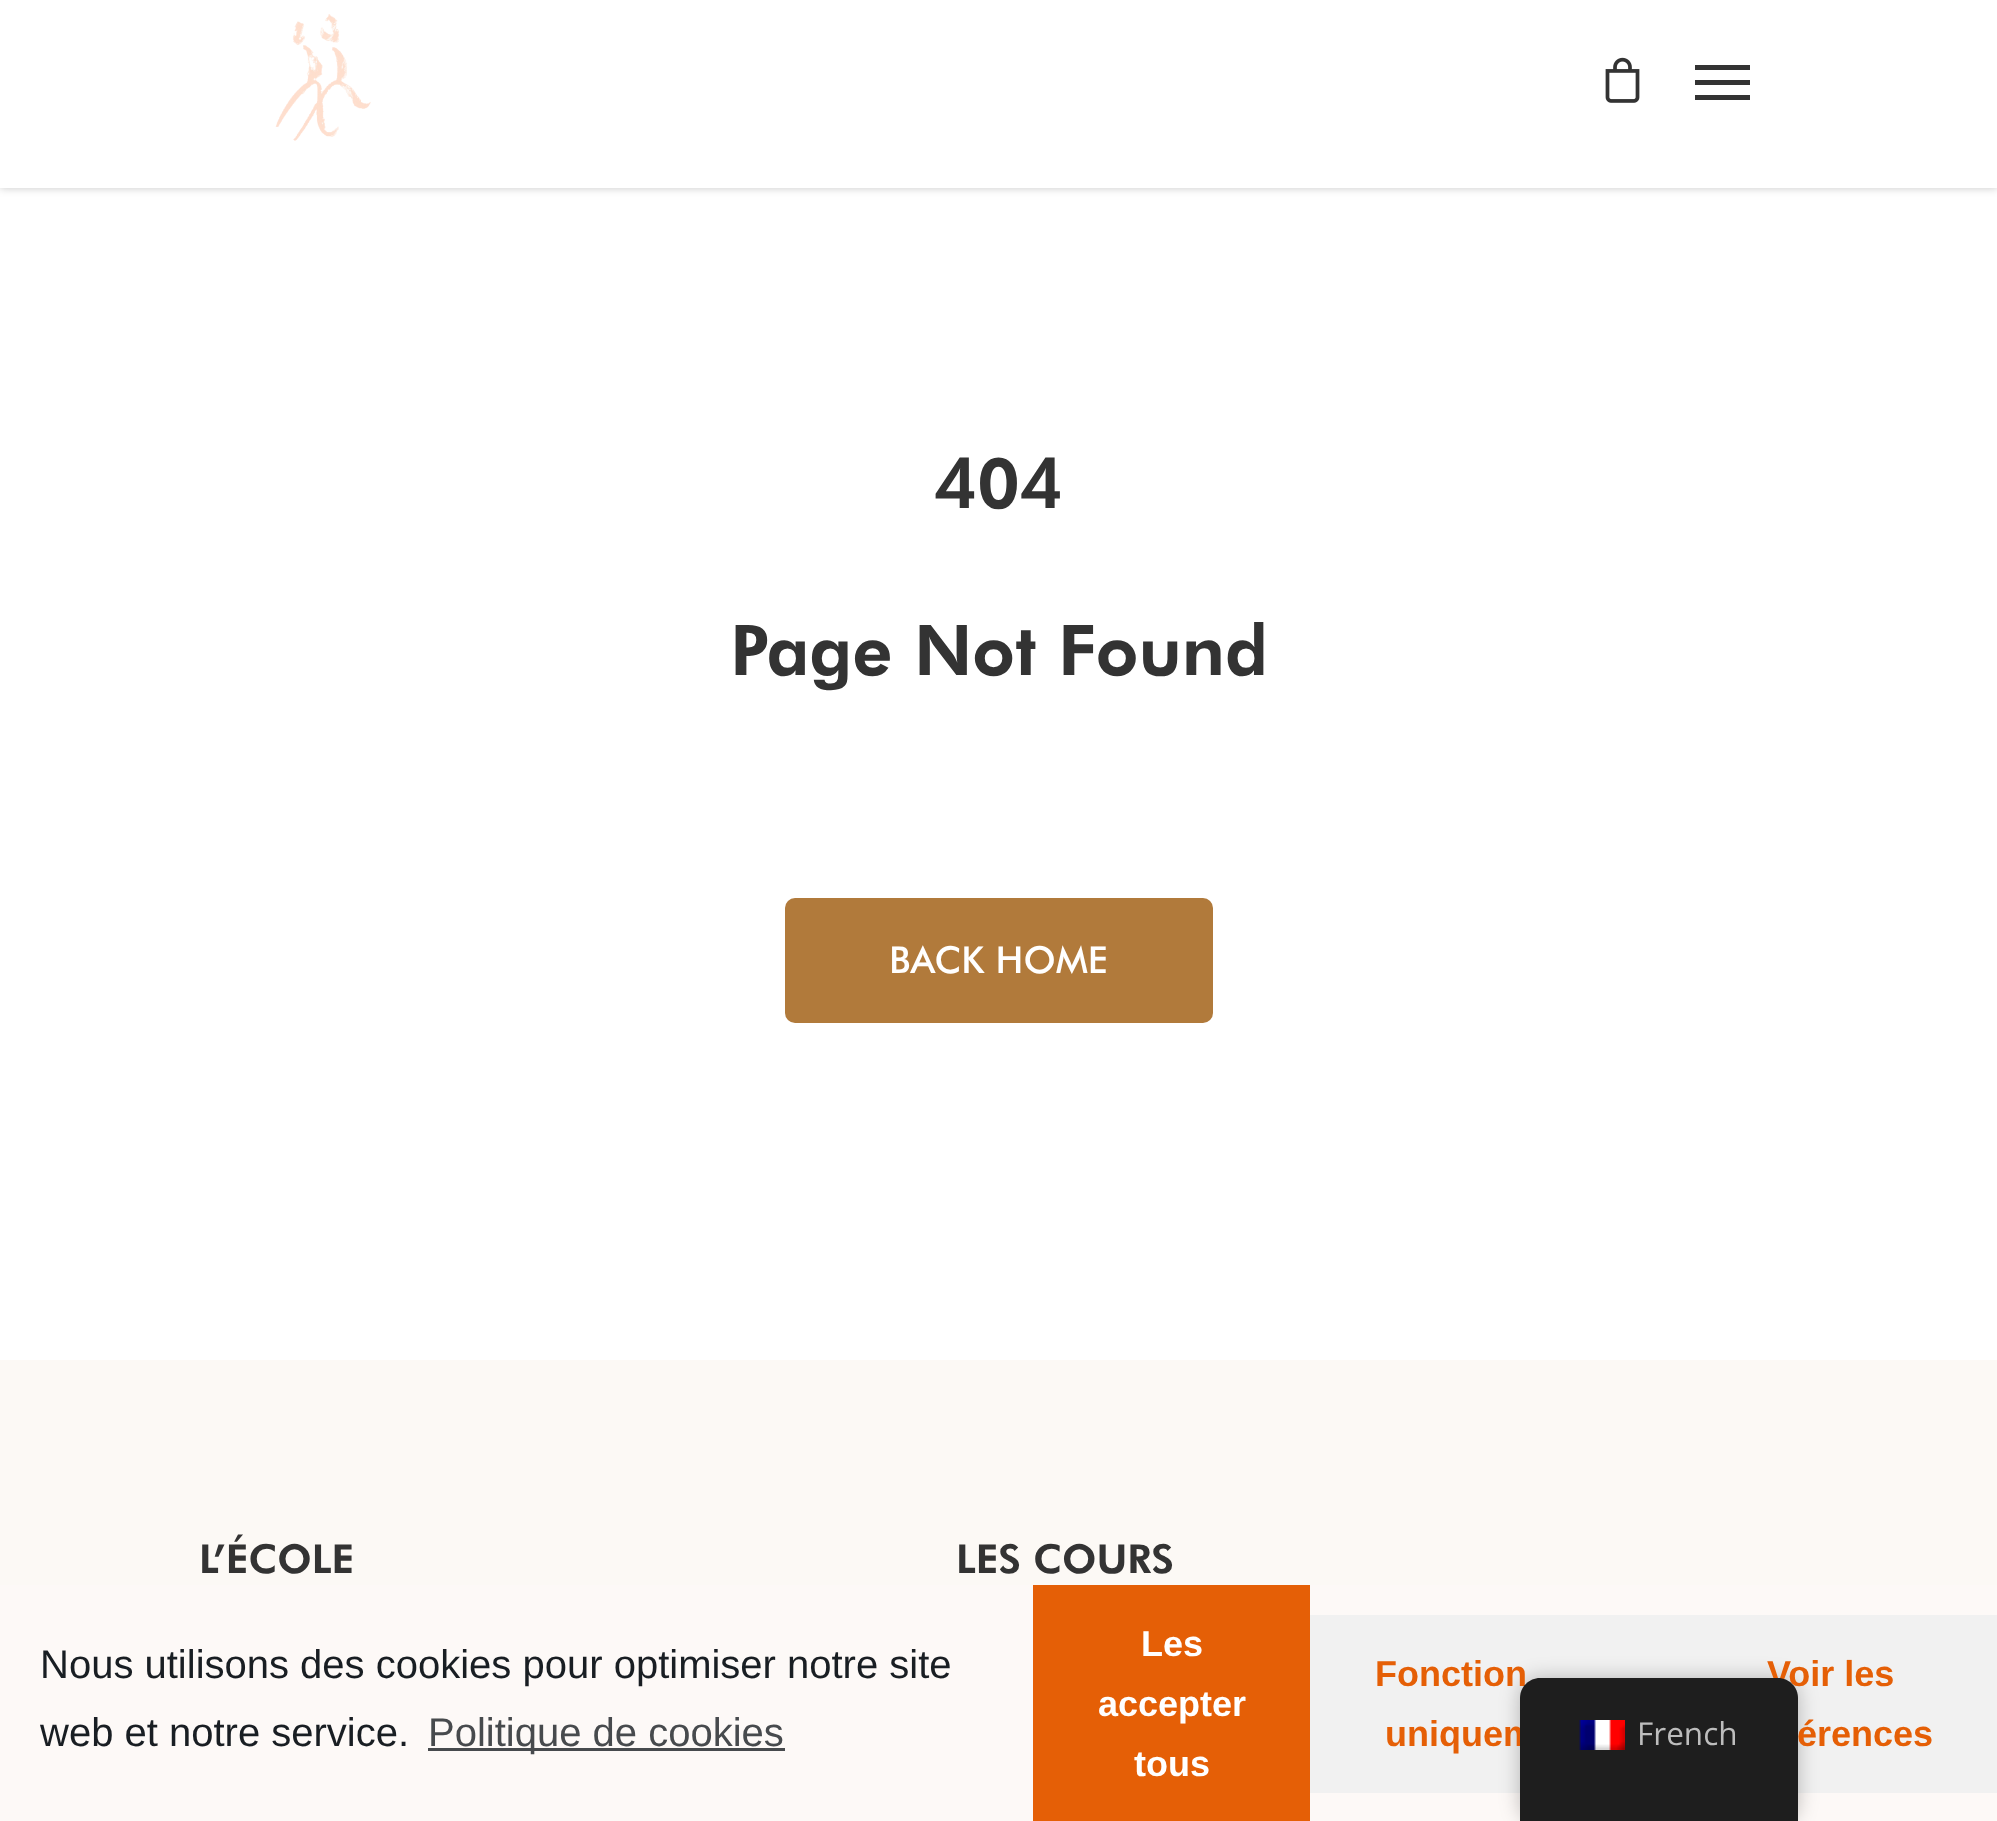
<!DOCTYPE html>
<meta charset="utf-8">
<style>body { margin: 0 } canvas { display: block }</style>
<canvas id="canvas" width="1997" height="1821"></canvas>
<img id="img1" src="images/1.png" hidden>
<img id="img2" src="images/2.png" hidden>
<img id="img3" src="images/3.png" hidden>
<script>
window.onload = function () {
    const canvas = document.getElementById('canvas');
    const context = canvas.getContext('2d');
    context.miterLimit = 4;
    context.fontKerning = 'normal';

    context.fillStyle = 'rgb(255, 255, 255)';
    context.fillRect(0, 0, 1997, 1821);
    context.fillStyle = 'rgba(0, 0, 0, 0.22)';
    context.filter = 'blur(4px)';
    context.beginPath();
    context.rect(0, 0, 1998, 188);
    context.fill();
    context.filter = 'none';
    context.fillStyle = 'rgb(255, 255, 255)';
    context.fillRect(0, 0, 1997, 188);
    context.drawImage(document.getElementById('img1'), 275, 14, 96, 127);
    context.drawImage(document.getElementById('img2'), 1605, 57, 35, 46);
    context.fillStyle = 'rgb(51, 51, 51)';
    context.fillRect(1695, 65, 55, 5);
    context.fillRect(1695, 95, 55, 5);
    context.fillRect(1695, 80, 55, 5);
    context.fillStyle = 'rgb(177, 122, 59)';
    context.beginPath();
    context.roundRect(785, 898, 428, 125, 10);
    context.fill();
    context.fillStyle = 'rgb(252, 249, 245)';
    context.fillRect(0, 1360, 1997, 225);
    context.fillStyle = 'rgb(253, 249, 247)';
    context.fillRect(0, 1585, 1997, 236);
    context.fillStyle = 'rgb(71, 74, 77)';
    context.fillRect(428, 1748, 357, 3);
    context.fillStyle = 'rgb(229, 95, 6)';
    context.fillRect(1033, 1585, 277, 236);
    context.fillStyle = 'rgb(241, 241, 241)';
    context.fillRect(1310, 1615, 687, 178);
    context.fillStyle = 'rgba(0, 0, 0, 0.25)';
    context.filter = 'blur(10px)';
    context.beginPath();
    context.roundRect(1520, 1678, 278, 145, 20);
    context.fill();
    context.filter = 'none';
    context.font = '900 70px Futura';
    context.fillStyle = 'rgb(51, 51, 51)';
    context.fillText('404', 934, 508);
    context.fillText('Page Not Found', 730, 675);
    context.font = '500 37.25px Futura';
    context.fillStyle = 'rgb(255, 255, 255)';
    context.fillText('BACK HOME', 889, 973);
    context.font = '900 40px Futura';
    context.fillStyle = 'rgb(51, 51, 51)';
    context.fillText('L’ÉCOLE', 199, 1573);
    context.fillText('LES COURS', 956, 1573);
    context.font = '40px Liberation Sans';
    context.fillStyle = 'rgb(25, 30, 35)';
    context.fillText('Nous utilisons des cookies pour optimiser notre site', 40, 1678);
    context.fillText('web et notre service.', 40, 1746);
    context.fillStyle = 'rgb(71, 74, 77)';
    context.fillText('Politique de cookies', 428, 1746);
    context.font = 'bold 36px Liberation Sans';
    context.fillStyle = 'rgb(255, 255, 255)';
    context.fillText('Les', 1141, 1656);
    context.fillText('accepter', 1098, 1716);
    context.fillText('tous', 1134, 1776);
    context.fillStyle = 'rgb(229, 95, 6)';
    context.fillText('Fonction', 1375, 1686);
    context.fillText('uniquem', 1385, 1746);
    context.fillText('Voir les', 1767, 1686);
    context.fillText('érences', 1797, 1746);
    context.fillStyle = 'rgb(30, 30, 30)';
    context.beginPath();
    context.moveTo(1540, 1678);
    context.lineTo(1778, 1678);
    context.bezierCurveTo(1789, 1678, 1798, 1687, 1798, 1698);
    context.lineTo(1798, 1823);
    context.lineTo(1520, 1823);
    context.lineTo(1520, 1698);
    context.bezierCurveTo(1520, 1687, 1529, 1678, 1540, 1678);
    context.closePath();
    context.fill();
    context.drawImage(document.getElementById('img3'), 1579, 1720, 46, 30);
    context.font = '31.5px Open Sans';
    context.fillStyle = 'rgb(189, 189, 189)';
    context.fillText('French', 1637, 1745);
};
</script>
